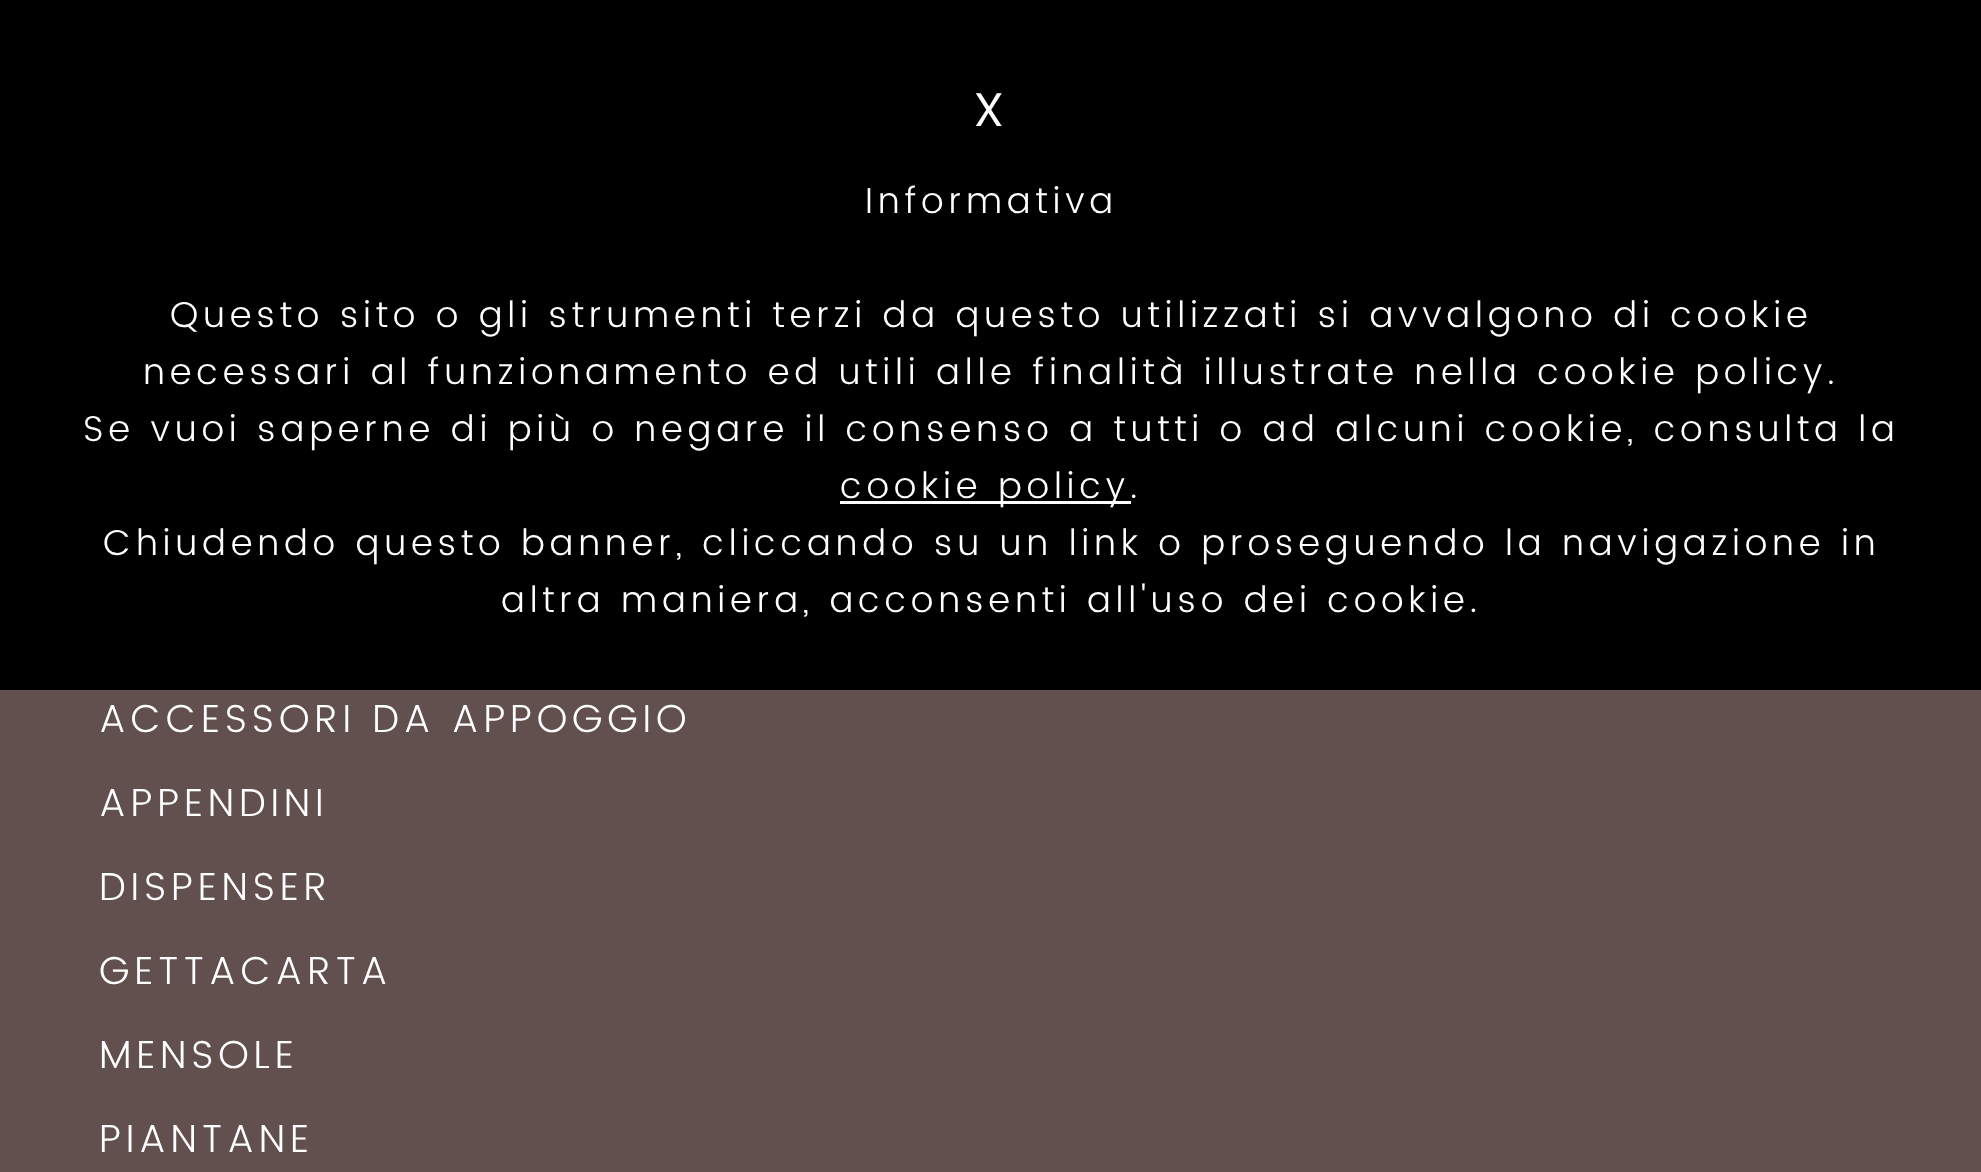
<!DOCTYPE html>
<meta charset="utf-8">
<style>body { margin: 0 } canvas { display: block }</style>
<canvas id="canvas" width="1981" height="1172"></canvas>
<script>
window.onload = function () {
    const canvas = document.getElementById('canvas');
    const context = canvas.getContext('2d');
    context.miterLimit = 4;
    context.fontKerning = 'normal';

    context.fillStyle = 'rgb(97, 80, 77)';
    context.fillRect(0, 0, 1981, 1172);
    context.fillStyle = 'rgb(0, 0, 0)';
    context.fillRect(0, 0, 1981, 690);
    context.fillStyle = 'rgb(255, 255, 255)';
    context.fillRect(840, 501, 291, 3);
    context.letterSpacing = '4.8px';
    context.font = '300 60px Poppins';
    context.fillText('x', 975, 126);
    context.font = '300 36px Poppins';
    context.fillText('Informativa', 865, 213);
    context.fillText('Questo sito o gli strumenti terzi da questo utilizzati si avvalgono di cookie', 170, 327);
    context.fillText('necessari al funzionamento ed utili alle finalità illustrate nella cookie policy.', 143, 384);
    context.fillText('Se vuoi saperne di più o negare il consenso a tutti o ad alcuni cookie, consulta la', 83, 441);
    context.fillText('cookie policy.', 840, 498);
    context.fillText('Chiudendo questo banner, cliccando su un link o proseguendo la navigazione in', 103, 555);
    context.fillText('altra maniera, acconsenti all\'uso dei cookie.', 501, 612);
    context.font = '300 39px Poppins';
    context.fillText('ACCESSORI DA APPOGGIO', 99, 732);
    context.fillText('APPENDINI', 99, 816);
    context.fillText('DISPENSER', 99, 900);
    context.fillText('GETTACARTA', 99, 984);
    context.fillText('MENSOLE', 99, 1068);
    context.fillText('PIANTANE', 99, 1152);
};
</script>
